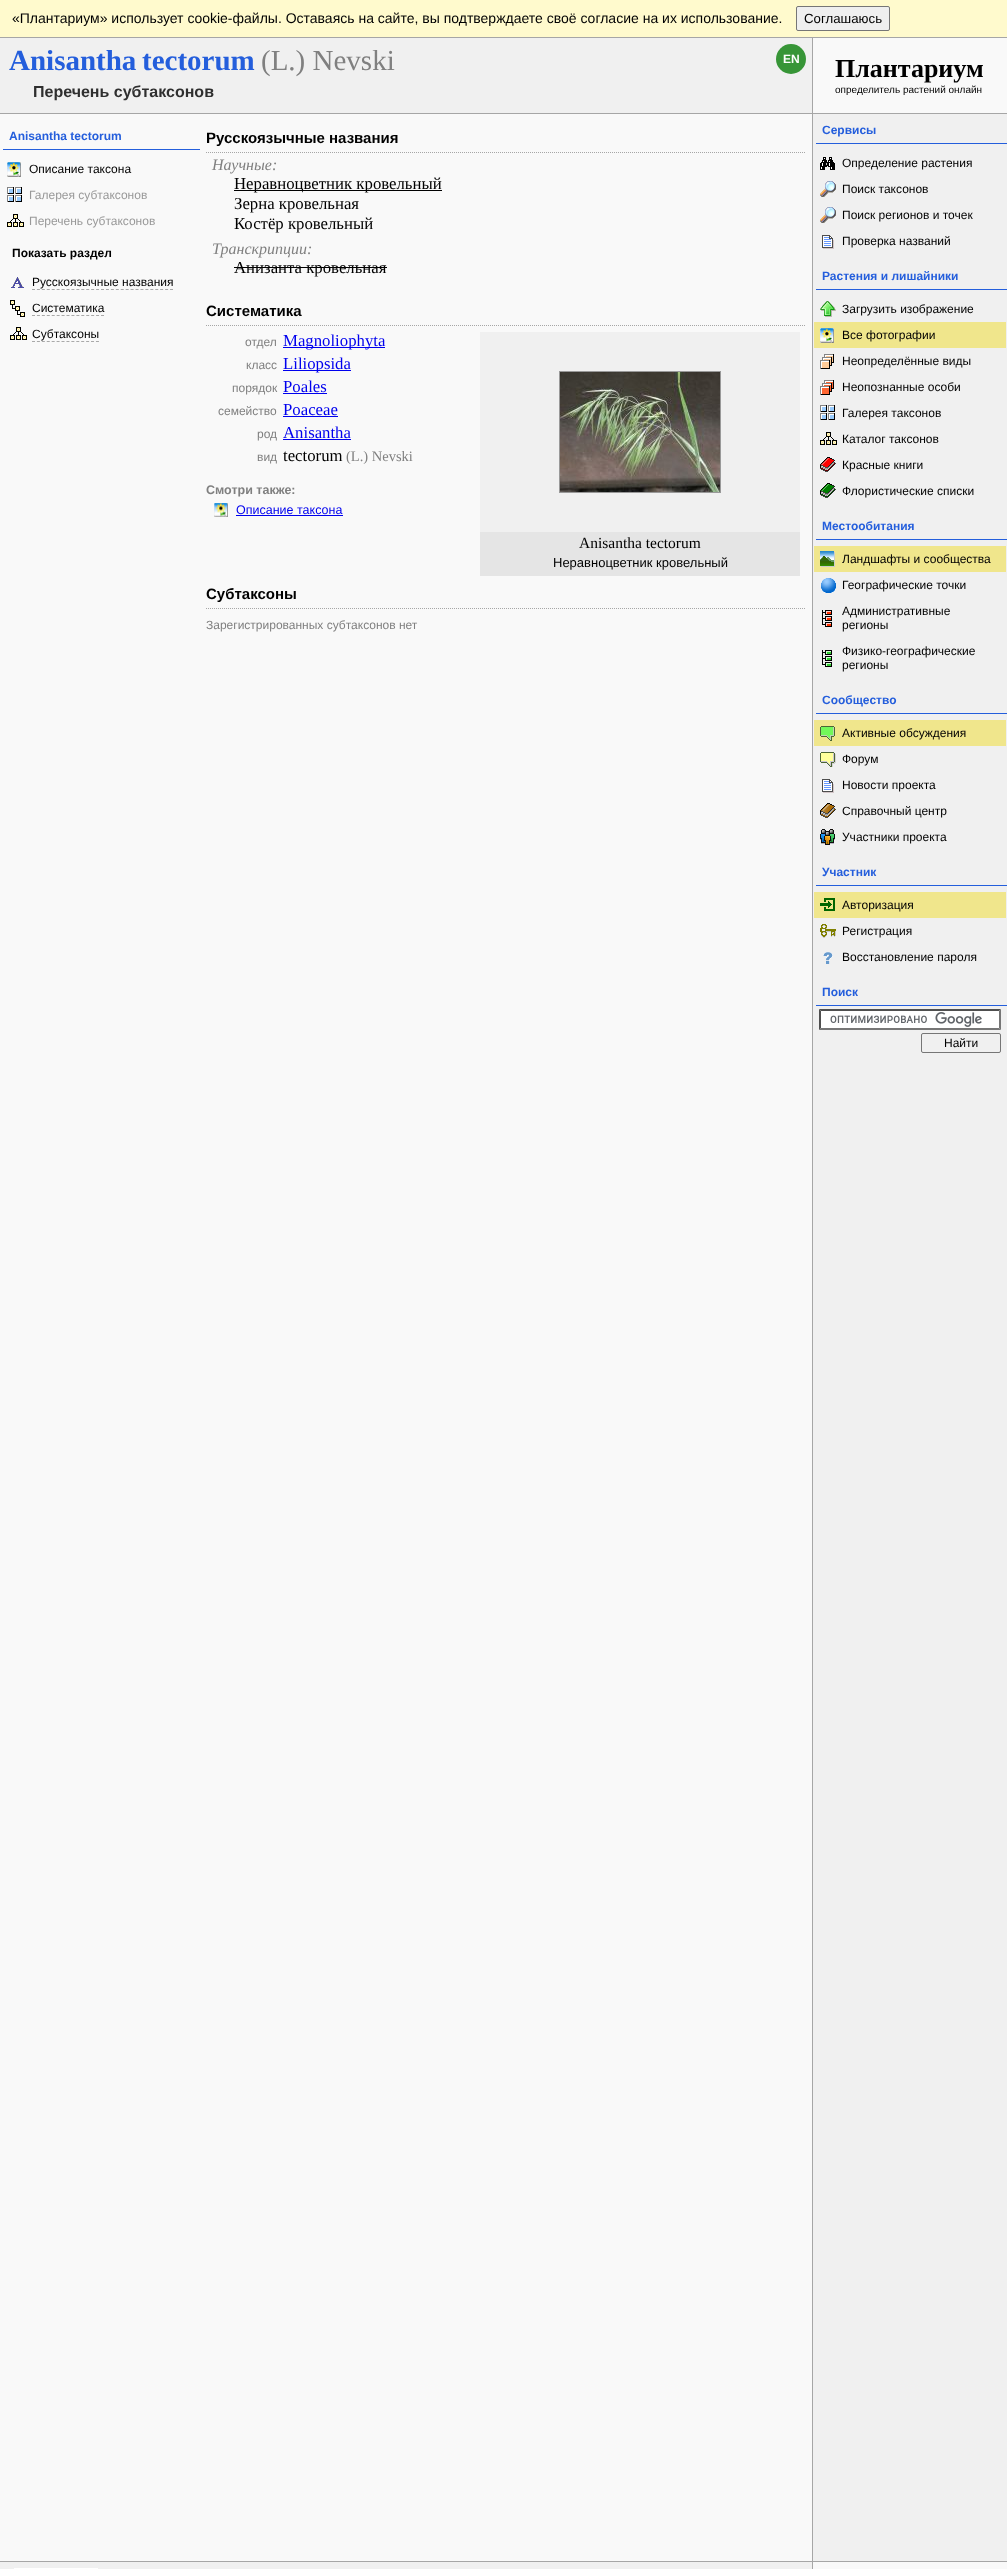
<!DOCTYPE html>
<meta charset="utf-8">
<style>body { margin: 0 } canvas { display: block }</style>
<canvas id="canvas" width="1007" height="2569"></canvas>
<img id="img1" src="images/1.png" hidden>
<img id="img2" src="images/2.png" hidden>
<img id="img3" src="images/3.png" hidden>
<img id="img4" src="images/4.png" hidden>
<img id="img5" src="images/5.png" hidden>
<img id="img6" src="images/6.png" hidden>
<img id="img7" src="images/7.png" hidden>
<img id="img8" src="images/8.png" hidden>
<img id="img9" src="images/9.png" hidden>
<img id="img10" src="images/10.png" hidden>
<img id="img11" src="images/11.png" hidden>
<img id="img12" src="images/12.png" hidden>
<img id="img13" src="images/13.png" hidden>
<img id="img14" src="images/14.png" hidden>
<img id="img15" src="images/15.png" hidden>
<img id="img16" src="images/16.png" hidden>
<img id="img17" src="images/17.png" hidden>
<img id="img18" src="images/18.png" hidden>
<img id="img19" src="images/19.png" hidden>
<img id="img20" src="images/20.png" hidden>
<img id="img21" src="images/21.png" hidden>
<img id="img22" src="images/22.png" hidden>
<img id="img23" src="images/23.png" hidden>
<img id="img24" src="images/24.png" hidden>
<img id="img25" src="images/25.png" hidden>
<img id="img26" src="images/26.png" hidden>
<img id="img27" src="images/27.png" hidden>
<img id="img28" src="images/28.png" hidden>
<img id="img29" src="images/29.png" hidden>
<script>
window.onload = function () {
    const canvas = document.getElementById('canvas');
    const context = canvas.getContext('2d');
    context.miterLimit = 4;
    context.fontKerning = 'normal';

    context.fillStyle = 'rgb(249, 249, 249)';
    context.fillRect(0, 0, 1007, 2569);
    context.fillStyle = 'rgb(255, 250, 205)';
    context.fillRect(0, 0, 1007, 37);
    context.fillStyle = 'rgb(239, 239, 239)';
    context.beginPath();
    context.roundRect(796.5, 6.5, 93, 24, 1.5);
    context.fill();
    context.strokeStyle = 'rgb(118, 118, 118)';
    context.stroke();
    context.fillStyle = 'rgb(240, 240, 240)';
    context.fillRect(0, 38, 812, 75);
    context.fillStyle = 'rgb(55, 149, 55)';
    context.beginPath();
    context.arc(791, 59, 15, 0, 2 * Math.PI);
    context.fill();
    context.fillStyle = 'rgb(166, 166, 166)';
    context.fillRect(0, 37, 1007, 1);
    context.fillRect(0, 113, 1007, 1);
    context.fillRect(812, 37, 1, 2524);
    context.fillStyle = 'rgb(36, 94, 220)';
    context.fillRect(3, 149, 197, 1);
    context.drawImage(document.getElementById('img1'), 7, 162, 14, 15);
    context.drawImage(document.getElementById('img2'), 7, 187, 15, 15);
    context.drawImage(document.getElementById('img3'), 7, 214, 17, 13);
    context.drawImage(document.getElementById('img4'), 11, 277, 13, 11);
    context.beginPath();
    context.moveTo(32, 289.5);
    context.lineTo(173, 289.5);
    context.strokeStyle = 'rgb(169, 169, 169)';
    context.setLineDash([3, 1.93]);
    context.stroke();
    context.drawImage(document.getElementById('img5'), 10, 300, 15, 17);
    context.beginPath();
    context.moveTo(32, 315.5);
    context.lineTo(104, 315.5);
    context.stroke();
    context.drawImage(document.getElementById('img3'), 10, 327, 17, 13);
    context.beginPath();
    context.moveTo(32, 341.5);
    context.lineTo(99, 341.5);
    context.setLineDash([3, 1.92]);
    context.stroke();
    context.beginPath();
    context.moveTo(206, 152.5);
    context.lineTo(806, 152.5);
    context.strokeStyle = 'rgb(166, 166, 166)';
    context.setLineDash([1, 1]);
    context.stroke();
    context.fillStyle = 'rgb(0, 0, 0)';
    context.fillRect(234, 190, 208, 1);
    context.fillRect(234, 267, 153, 1);
    context.beginPath();
    context.moveTo(206, 325.5);
    context.lineTo(806, 325.5);
    context.stroke();
    context.fillStyle = 'rgb(0, 0, 238)';
    context.fillRect(283, 347, 102, 1);
    context.fillRect(283, 370, 68, 1);
    context.fillRect(283, 393, 44, 1);
    context.fillRect(283, 416, 55, 1);
    context.fillRect(283, 439, 68, 1);
    context.drawImage(document.getElementById('img6'), 214, 503, 14, 14);
    context.fillRect(236, 515, 107, 1);
    context.fillStyle = 'rgb(240, 240, 240)';
    context.fillRect(480, 332, 320, 200);
    context.strokeStyle = 'rgb(153, 153, 153)';
    context.setLineDash([]);
    context.strokeRect(559.5, 371.5, 161, 121);
    context.drawImage(document.getElementById('img7'), 560, 372, 160, 120);
    context.fillStyle = 'rgb(229, 229, 229)';
    context.fillRect(480, 532, 320, 44);
    context.beginPath();
    context.moveTo(206, 608.5);
    context.lineTo(806, 608.5);
    context.strokeStyle = 'rgb(166, 166, 166)';
    context.setLineDash([1, 1]);
    context.stroke();
    context.fillStyle = 'rgb(240, 240, 240)';
    context.fillRect(813, 114, 194, 2447);
    context.fillStyle = 'rgb(36, 94, 220)';
    context.fillRect(816, 143, 191, 1);
    context.drawImage(document.getElementById('img8'), 820, 157, 15, 13);
    context.drawImage(document.getElementById('img9'), 820, 181, 16, 16);
    context.drawImage(document.getElementById('img9'), 820, 207, 16, 16);
    context.drawImage(document.getElementById('img10'), 822, 235, 12, 14);
    context.fillRect(816, 289, 191, 1);
    context.drawImage(document.getElementById('img11'), 820, 301, 16, 16);
    context.fillStyle = 'rgb(240, 230, 140)';
    context.fillRect(814, 322, 192, 26);
    context.drawImage(document.getElementById('img1'), 820, 328, 14, 15);
    context.drawImage(document.getElementById('img12'), 820, 354, 14, 15);
    context.drawImage(document.getElementById('img13'), 820, 380, 14, 15);
    context.drawImage(document.getElementById('img14'), 820, 405, 15, 15);
    context.drawImage(document.getElementById('img15'), 820, 432, 17, 13);
    context.drawImage(document.getElementById('img16'), 820, 457, 16, 15);
    context.drawImage(document.getElementById('img17'), 820, 483, 16, 15);
    context.fillStyle = 'rgb(36, 94, 220)';
    context.fillRect(816, 539, 191, 1);
    context.fillStyle = 'rgb(240, 230, 140)';
    context.fillRect(814, 546, 192, 26);
    context.drawImage(document.getElementById('img18'), 820, 551, 15, 16);
    context.drawImage(document.getElementById('img19'), 821, 578, 15, 15);
    context.drawImage(document.getElementById('img20'), 822, 610, 10, 17);
    context.drawImage(document.getElementById('img21'), 822, 650, 10, 17);
    context.fillStyle = 'rgb(36, 94, 220)';
    context.fillRect(816, 713, 191, 1);
    context.fillStyle = 'rgb(240, 230, 140)';
    context.fillRect(814, 720, 192, 26);
    context.drawImage(document.getElementById('img22'), 820, 726, 15, 15);
    context.drawImage(document.getElementById('img23'), 820, 752, 16, 15);
    context.drawImage(document.getElementById('img10'), 822, 779, 12, 14);
    context.drawImage(document.getElementById('img24'), 820, 803, 16, 15);
    context.drawImage(document.getElementById('img25'), 820, 829, 15, 16);
    context.fillStyle = 'rgb(36, 94, 220)';
    context.fillRect(816, 885, 191, 1);
    context.fillStyle = 'rgb(240, 230, 140)';
    context.fillRect(814, 892, 192, 26);
    context.drawImage(document.getElementById('img26'), 820, 898, 15, 13);
    context.drawImage(document.getElementById('img27'), 820, 924, 16, 14);
    context.drawImage(document.getElementById('img28'), 823, 952, 10, 12);
    context.fillStyle = 'rgb(36, 94, 220)';
    context.fillRect(816, 1005, 191, 1);
    context.fillStyle = 'rgb(255, 255, 255)';
    context.fillRect(819, 1009, 182, 21);
    context.drawImage(document.getElementById('img29'), 830, 1012, 152, 15);
    context.fillStyle = 'rgb(79, 79, 79)';
    context.beginPath();
    context.moveTo(819, 1009);
    context.lineTo(1001, 1009);
    context.lineTo(999, 1011);
    context.lineTo(821, 1011);
    context.closePath();
    context.fill();
    context.fillStyle = 'rgb(118, 118, 118)';
    context.beginPath();
    context.moveTo(1001, 1009);
    context.lineTo(1001, 1030);
    context.lineTo(999, 1028);
    context.lineTo(999, 1011);
    context.closePath();
    context.fill();
    context.beginPath();
    context.moveTo(1001, 1030);
    context.lineTo(819, 1030);
    context.lineTo(821, 1028);
    context.lineTo(999, 1028);
    context.closePath();
    context.fill();
    context.fillStyle = 'rgb(79, 79, 79)';
    context.beginPath();
    context.moveTo(819, 1030);
    context.lineTo(819, 1009);
    context.lineTo(821, 1011);
    context.lineTo(821, 1028);
    context.closePath();
    context.fill();
    context.beginPath();
    context.roundRect(921.5, 1033.5, 79, 19, 1.5);
    context.strokeStyle = 'rgb(118, 118, 118)';
    context.setLineDash([]);
    context.stroke();
    context.fillStyle = 'rgb(240, 240, 240)';
    context.fillRect(0, 2562, 812, 7);
    context.fillStyle = 'rgb(166, 166, 166)';
    context.fillRect(0, 2561, 1007, 1);
    context.fillStyle = 'rgb(255, 255, 255)';
    context.fillRect(14, 2568, 84, 1);
    context.fillStyle = 'rgb(166, 166, 166)';
    context.fillRect(812, 2561, 1, 8);
    context.font = '14px Liberation Sans';
    context.fillStyle = 'rgb(0, 0, 0)';
    context.fillText('«Плантариум» использует cookie-файлы. Оставаясь на сайте, вы подтверждаете своё согласие на их использование.', 12, 23);
    context.font = '13.25px Liberation Sans';
    context.fillText('Соглашаюсь', 804, 23);
    context.font = 'bold 29px Liberation Serif';
    context.fillStyle = 'rgb(36, 94, 220)';
    context.fillText('Anisantha', 9, 70);
    context.fillText('tectorum', 142, 70);
    context.font = '29px Liberation Serif';
    context.fillStyle = 'rgb(128, 128, 128)';
    context.fillText('(L.) Nevski', 261, 70);
    context.font = 'bold 16px Liberation Sans';
    context.fillStyle = 'rgb(47, 47, 47)';
    context.fillText('Перечень субтаксонов', 33, 97);
    context.font = 'bold 12px Liberation Sans';
    context.fillStyle = 'rgb(254, 254, 254)';
    context.fillText('EN', 783, 63);
    context.font = 'bold 26px Liberation Serif';
    context.fillStyle = 'rgb(0, 0, 0)';
    context.fillText('Плантариум', 835, 77);
    context.font = '10px Liberation Sans';
    context.fillText('определитель растений онлайн', 835, 93);
    context.font = 'bold 12px Liberation Sans';
    context.fillStyle = 'rgb(36, 94, 220)';
    context.fillText('Anisantha tectorum', 9, 140);
    context.font = '12px Liberation Sans';
    context.fillStyle = 'rgb(0, 0, 0)';
    context.fillText('Описание таксона', 29, 173);
    context.fillStyle = 'rgb(153, 153, 153)';
    context.fillText('Галерея субтаксонов', 29, 199);
    context.fillText('Перечень субтаксонов', 29, 225);
    context.font = 'bold 12px Liberation Sans';
    context.fillStyle = 'rgb(0, 0, 0)';
    context.fillText('Показать раздел', 12, 257);
    context.font = '12px Liberation Sans';
    context.fillText('Русскоязычные названия', 32, 286);
    context.fillText('Систематика', 32, 312);
    context.fillText('Субтаксоны', 32, 338);
    context.font = 'bold 15px Liberation Sans';
    context.fillText('Русскоязычные названия', 206, 143);
    context.font = 'italic 16px Liberation Serif';
    context.fillStyle = 'rgb(128, 128, 128)';
    context.fillText('Научные:', 212, 170);
    context.font = '16.75px Liberation Serif';
    context.fillStyle = 'rgb(0, 0, 0)';
    context.fillText('Неравноцветник кровельный', 234, 189);
    context.fillText('Зерна кровельная', 234, 209);
    context.fillText('Костёр кровельный', 234, 229);
    context.font = 'italic 16px Liberation Serif';
    context.fillStyle = 'rgb(128, 128, 128)';
    context.fillText('Транскрипции:', 212, 254);
    context.font = '16.75px Liberation Serif';
    context.fillStyle = 'rgb(0, 0, 0)';
    context.fillText('Анизанта кровельная', 234, 273);
    context.font = 'bold 15px Liberation Sans';
    context.fillText('Систематика', 206, 316);
    context.font = '12px Liberation Sans';
    context.fillStyle = 'rgb(128, 128, 128)';
    context.fillText('отдел', 245, 346);
    context.font = '16.75px Liberation Serif';
    context.fillStyle = 'rgb(0, 0, 238)';
    context.fillText('Magnoliophyta', 283, 346);
    context.font = '12px Liberation Sans';
    context.fillStyle = 'rgb(128, 128, 128)';
    context.fillText('класс', 246, 369);
    context.font = '16.75px Liberation Serif';
    context.fillStyle = 'rgb(0, 0, 238)';
    context.fillText('Liliopsida', 283, 369);
    context.font = '12px Liberation Sans';
    context.fillStyle = 'rgb(128, 128, 128)';
    context.fillText('порядок', 232, 392);
    context.font = '16.75px Liberation Serif';
    context.fillStyle = 'rgb(0, 0, 238)';
    context.fillText('Poales', 283, 392);
    context.font = '12px Liberation Sans';
    context.fillStyle = 'rgb(128, 128, 128)';
    context.fillText('семейство', 218, 415);
    context.font = '16.75px Liberation Serif';
    context.fillStyle = 'rgb(0, 0, 238)';
    context.fillText('Poaceae', 283, 415);
    context.font = '12px Liberation Sans';
    context.fillStyle = 'rgb(128, 128, 128)';
    context.fillText('род', 257, 438);
    context.font = '16.75px Liberation Serif';
    context.fillStyle = 'rgb(0, 0, 238)';
    context.fillText('Anisantha', 283, 438);
    context.font = '12px Liberation Sans';
    context.fillStyle = 'rgb(128, 128, 128)';
    context.fillText('вид', 257, 461);
    context.font = '16.75px Liberation Serif';
    context.fillStyle = 'rgb(0, 0, 0)';
    context.fillText('tectorum', 283, 461);
    context.font = '14.5px Liberation Serif';
    context.fillStyle = 'rgb(128, 128, 128)';
    context.fillText('(L.) Nevski', 346, 461);
    context.font = 'bold 12.5px Liberation Sans';
    context.fillText('Смотри также:', 206, 494);
    context.font = '12.5px Liberation Sans';
    context.fillStyle = 'rgb(0, 0, 238)';
    context.fillText('Описание таксона', 236, 514);
    context.font = '15.5px Liberation Serif';
    context.fillStyle = 'rgb(0, 0, 0)';
    context.fillText('Anisantha tectorum', 579, 548);
    context.font = '13px Liberation Sans';
    context.fillText('Неравноцветник кровельный', 553, 567);
    context.font = 'bold 15px Liberation Sans';
    context.fillText('Субтаксоны', 206, 599);
    context.font = '12px Liberation Sans';
    context.fillStyle = 'rgb(128, 128, 128)';
    context.fillText('Зарегистрированных субтаксонов нет', 206, 629);
    context.font = 'bold 12px Liberation Sans';
    context.fillStyle = 'rgb(36, 94, 220)';
    context.fillText('Сервисы', 822, 134);
    context.font = '12px Liberation Sans';
    context.fillStyle = 'rgb(0, 0, 0)';
    context.fillText('Определение растения', 842, 167);
    context.fillText('Поиск таксонов', 842, 193);
    context.fillText('Поиск регионов и точек', 842, 219);
    context.fillText('Проверка названий', 842, 245);
    context.font = 'bold 12px Liberation Sans';
    context.fillStyle = 'rgb(36, 94, 220)';
    context.fillText('Растения и лишайники', 822, 280);
    context.font = '12px Liberation Sans';
    context.fillStyle = 'rgb(0, 0, 0)';
    context.fillText('Загрузить изображение', 842, 313);
    context.fillText('Все фотографии', 842, 339);
    context.fillText('Неопределённые виды', 842, 365);
    context.fillText('Неопознанные особи', 842, 391);
    context.fillText('Галерея таксонов', 842, 417);
    context.fillText('Каталог таксонов', 842, 443);
    context.fillText('Красные книги', 842, 469);
    context.fillText('Флористические списки', 842, 495);
    context.font = 'bold 12px Liberation Sans';
    context.fillStyle = 'rgb(36, 94, 220)';
    context.fillText('Местообитания', 822, 530);
    context.font = '12px Liberation Sans';
    context.fillStyle = 'rgb(0, 0, 0)';
    context.fillText('Ландшафты и сообщества', 842, 563);
    context.fillText('Географические точки', 842, 589);
    context.fillText('Административные', 842, 615);
    context.fillText('регионы', 842, 629);
    context.fillText('Физико-географические', 842, 655);
    context.fillText('регионы', 842, 669);
    context.font = 'bold 12px Liberation Sans';
    context.fillStyle = 'rgb(36, 94, 220)';
    context.fillText('Сообщество', 822, 704);
    context.font = '12px Liberation Sans';
    context.fillStyle = 'rgb(0, 0, 0)';
    context.fillText('Активные обсуждения', 842, 737);
    context.fillText('Форум', 842, 763);
    context.fillText('Новости проекта', 842, 789);
    context.fillText('Справочный центр', 842, 815);
    context.fillText('Участники проекта', 842, 841);
    context.font = 'bold 12px Liberation Sans';
    context.fillStyle = 'rgb(36, 94, 220)';
    context.fillText('Участник', 822, 876);
    context.font = '12px Liberation Sans';
    context.fillStyle = 'rgb(0, 0, 0)';
    context.fillText('Авторизация', 842, 909);
    context.fillText('Регистрация', 842, 935);
    context.fillText('Восстановление пароля', 842, 961);
    context.font = 'bold 12px Liberation Sans';
    context.fillStyle = 'rgb(36, 94, 220)';
    context.fillText('Поиск', 822, 996);
    context.font = '12px Liberation Sans';
    context.fillStyle = 'rgb(0, 0, 0)';
    context.fillText('Найти', 944, 1047);
};
</script>
